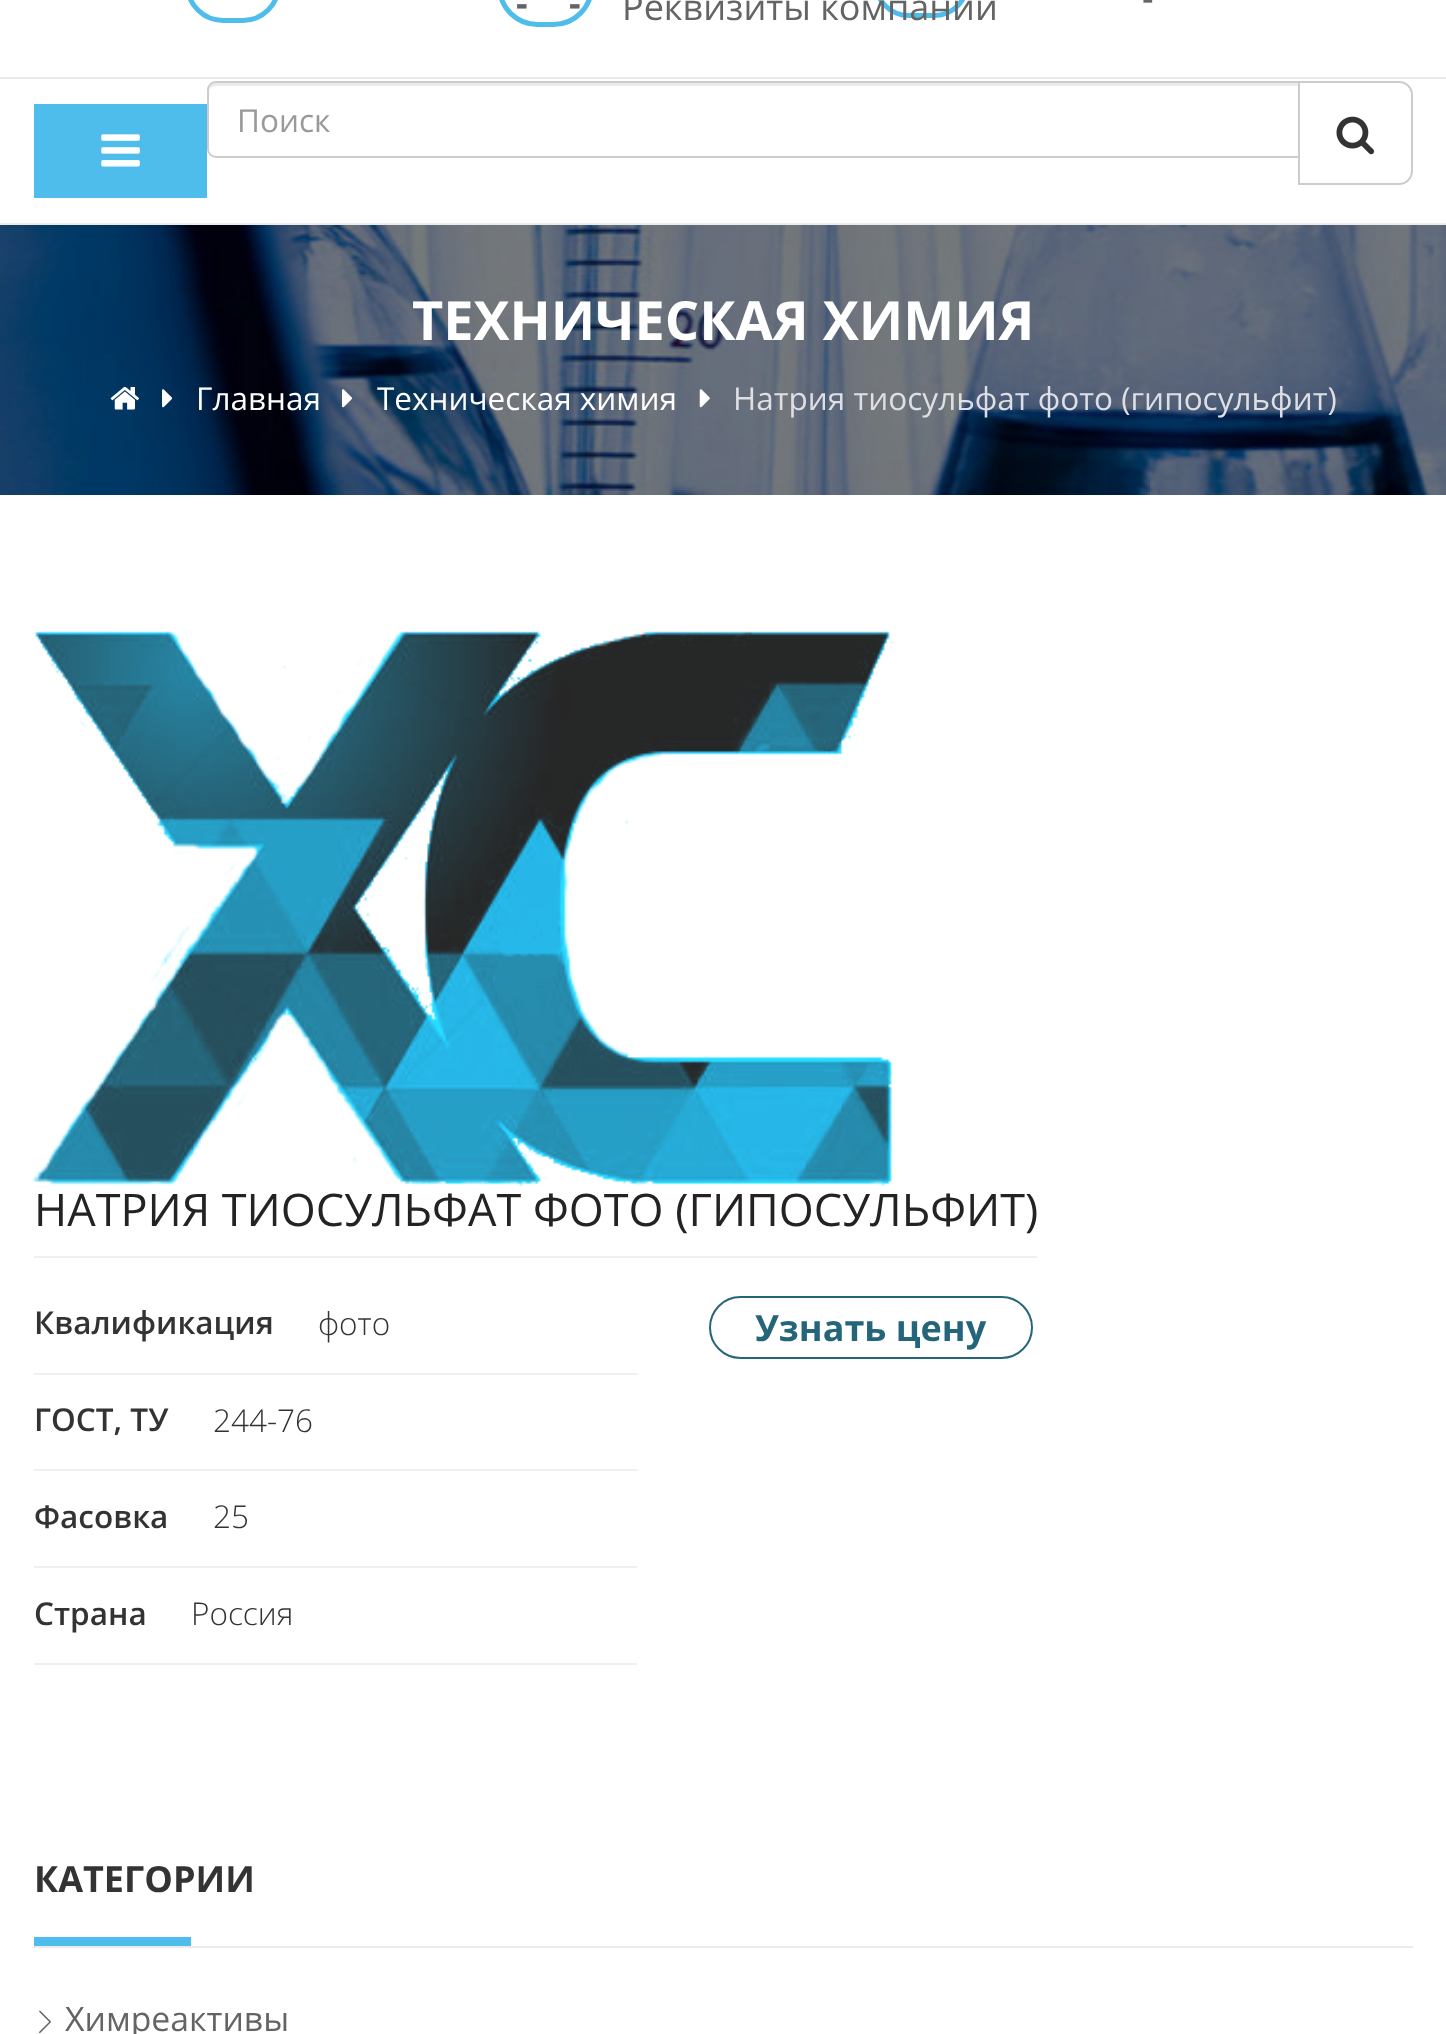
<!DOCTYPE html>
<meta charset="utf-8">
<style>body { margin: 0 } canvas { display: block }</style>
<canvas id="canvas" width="1446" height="2034"></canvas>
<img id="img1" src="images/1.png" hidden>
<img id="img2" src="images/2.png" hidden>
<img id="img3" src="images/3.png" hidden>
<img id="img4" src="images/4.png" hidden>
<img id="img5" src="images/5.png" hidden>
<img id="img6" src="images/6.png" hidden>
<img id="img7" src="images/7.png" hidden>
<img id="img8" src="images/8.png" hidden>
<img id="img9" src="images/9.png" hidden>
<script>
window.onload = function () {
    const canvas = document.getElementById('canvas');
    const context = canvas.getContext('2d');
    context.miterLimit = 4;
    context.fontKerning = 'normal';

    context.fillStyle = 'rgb(255, 255, 255)';
    context.fillRect(0, 0, 1446, 2034);
    context.fillStyle = 'rgb(235, 235, 235)';
    context.fillRect(0, 77, 1446, 2);
    context.beginPath();
    context.roundRect(499.5, -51.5, 92, 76, 46);
    context.strokeStyle = 'rgb(78, 189, 235)';
    context.lineWidth = 5;
    context.stroke();
    context.beginPath();
    context.roundRect(875.5, -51.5, 92, 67, 46);
    context.stroke();
    context.beginPath();
    context.roundRect(187.5, -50.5, 91, 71, 45.5);
    context.stroke();
    context.fillRect(0, 223, 1446, 2);
    context.fillStyle = 'rgb(78, 189, 235)';
    context.fillRect(34, 104, 173, 94);
    context.drawImage(document.getElementById('img1'), 101, 134, 39, 33);
    context.fillStyle = 'rgb(236, 236, 236)';
    context.beginPath();
    context.moveTo(216, 86);
    context.lineTo(1298, 86);
    context.lineTo(1298, 83);
    context.lineTo(216, 83);
    context.bezierCurveTo(211, 83, 209, 88, 209, 92);
    context.bezierCurveTo(209, 89, 212, 86, 216, 86);
    context.closePath();
    context.fill();
    context.beginPath();
    context.roundRect(208, 82, 1092, 75, [8, 0, 0, 8]);
    context.strokeStyle = 'rgb(204, 204, 204)';
    context.lineWidth = 2;
    context.stroke();
    context.fillStyle = 'rgb(255, 255, 255)';
    context.beginPath();
    context.roundRect(1299, 82, 113, 102, [0, 13, 13, 0]);
    context.fill();
    context.stroke();
    context.drawImage(document.getElementById('img2'), 1336, 116, 39, 39);
    context.drawImage(document.getElementById('img3'), 0, 225, 1446, 270);
    context.drawImage(document.getElementById('img4'), 110, 387, 29, 23);
    context.drawImage(document.getElementById('img5'), 162, 389, 11, 19);
    context.drawImage(document.getElementById('img6'), 342, 389, 11, 19);
    context.drawImage(document.getElementById('img7'), 699, 389, 11, 19);
    context.drawImage(document.getElementById('img8'), 33, 631, 861, 557);
    context.fillStyle = 'rgb(239, 239, 239)';
    context.fillRect(34, 1256, 1003, 2);
    context.fillRect(34, 1373, 603, 2);
    context.fillRect(34, 1469, 603, 2);
    context.fillRect(34, 1566, 603, 2);
    context.fillRect(34, 1663, 603, 2);
    context.beginPath();
    context.roundRect(710, 1297, 322, 61, 30.5);
    context.strokeStyle = 'rgb(37, 101, 122)';
    context.stroke();
    context.fillStyle = 'rgb(235, 235, 235)';
    context.fillRect(34, 1946, 1379, 2);
    context.fillStyle = 'rgb(78, 189, 235)';
    context.fillRect(34, 1937, 157, 9);
    context.drawImage(document.getElementById('img9'), 39, 2010, 12, 24);
    context.font = '36px Open Sans';
    context.fillStyle = 'rgb(100, 100, 100)';
    context.fillText('Реквизиты компании', 622, 20);
    context.fillText('-', 1142, 11);
    context.font = 'bold 36px Open Sans';
    context.fillText('-', 516, 16);
    context.fillText('-', 569, 16);
    context.font = '31.5px Open Sans';
    context.fillStyle = 'rgb(153, 153, 153)';
    context.fillText('Поиск', 237, 132);
    context.font = 'bold 54px Open Sans';
    context.fillStyle = 'rgb(255, 255, 255)';
    context.fillText('ТЕХНИЧЕСКАЯ ХИМИЯ', 412, 340);
    context.font = '31.5px Open Sans';
    context.fillText('Главная', 196, 410);
    context.fillText('Техническая химия', 377, 410);
    context.fillStyle = 'rgb(221, 223, 228)';
    context.fillText('Натрия тиосульфат фото (гипосульфит)', 733, 410);
    context.font = '45px Open Sans';
    context.fillStyle = 'rgb(35, 35, 35)';
    context.fillText('НАТРИЯ ТИОСУЛЬФАТ ФОТО (ГИПОСУЛЬФИТ)', 34, 1226);
    context.font = '600 31.5px Open Sans';
    context.fillStyle = 'rgb(51, 51, 51)';
    context.fillText('Квалификация', 34, 1334);
    context.font = '300 31.5px Open Sans';
    context.fillText('фото', 318, 1335);
    context.font = '600 31.5px Open Sans';
    context.fillText('ГОСТ, ТУ', 34, 1431);
    context.font = '300 31.5px Open Sans';
    context.fillText('244-76', 213, 1432);
    context.font = '600 31.5px Open Sans';
    context.fillText('Фасовка', 34, 1528);
    context.font = '300 31.5px Open Sans';
    context.fillText('25', 213, 1528);
    context.font = '600 31.5px Open Sans';
    context.fillText('Страна', 34, 1625);
    context.font = '300 31.5px Open Sans';
    context.fillText('Россия', 191, 1625);
    context.font = 'bold 36px Open Sans';
    context.fillStyle = 'rgb(37, 101, 122)';
    context.fillText('Узнать цену', 755, 1341);
    context.fillStyle = 'rgb(51, 51, 51)';
    context.fillText('КАТЕГОРИИ', 34, 1892);
    context.font = '33.75px Open Sans';
    context.fillStyle = 'rgb(100, 100, 100)';
    context.fillText('Химреактивы', 65, 2031);
};
</script>
